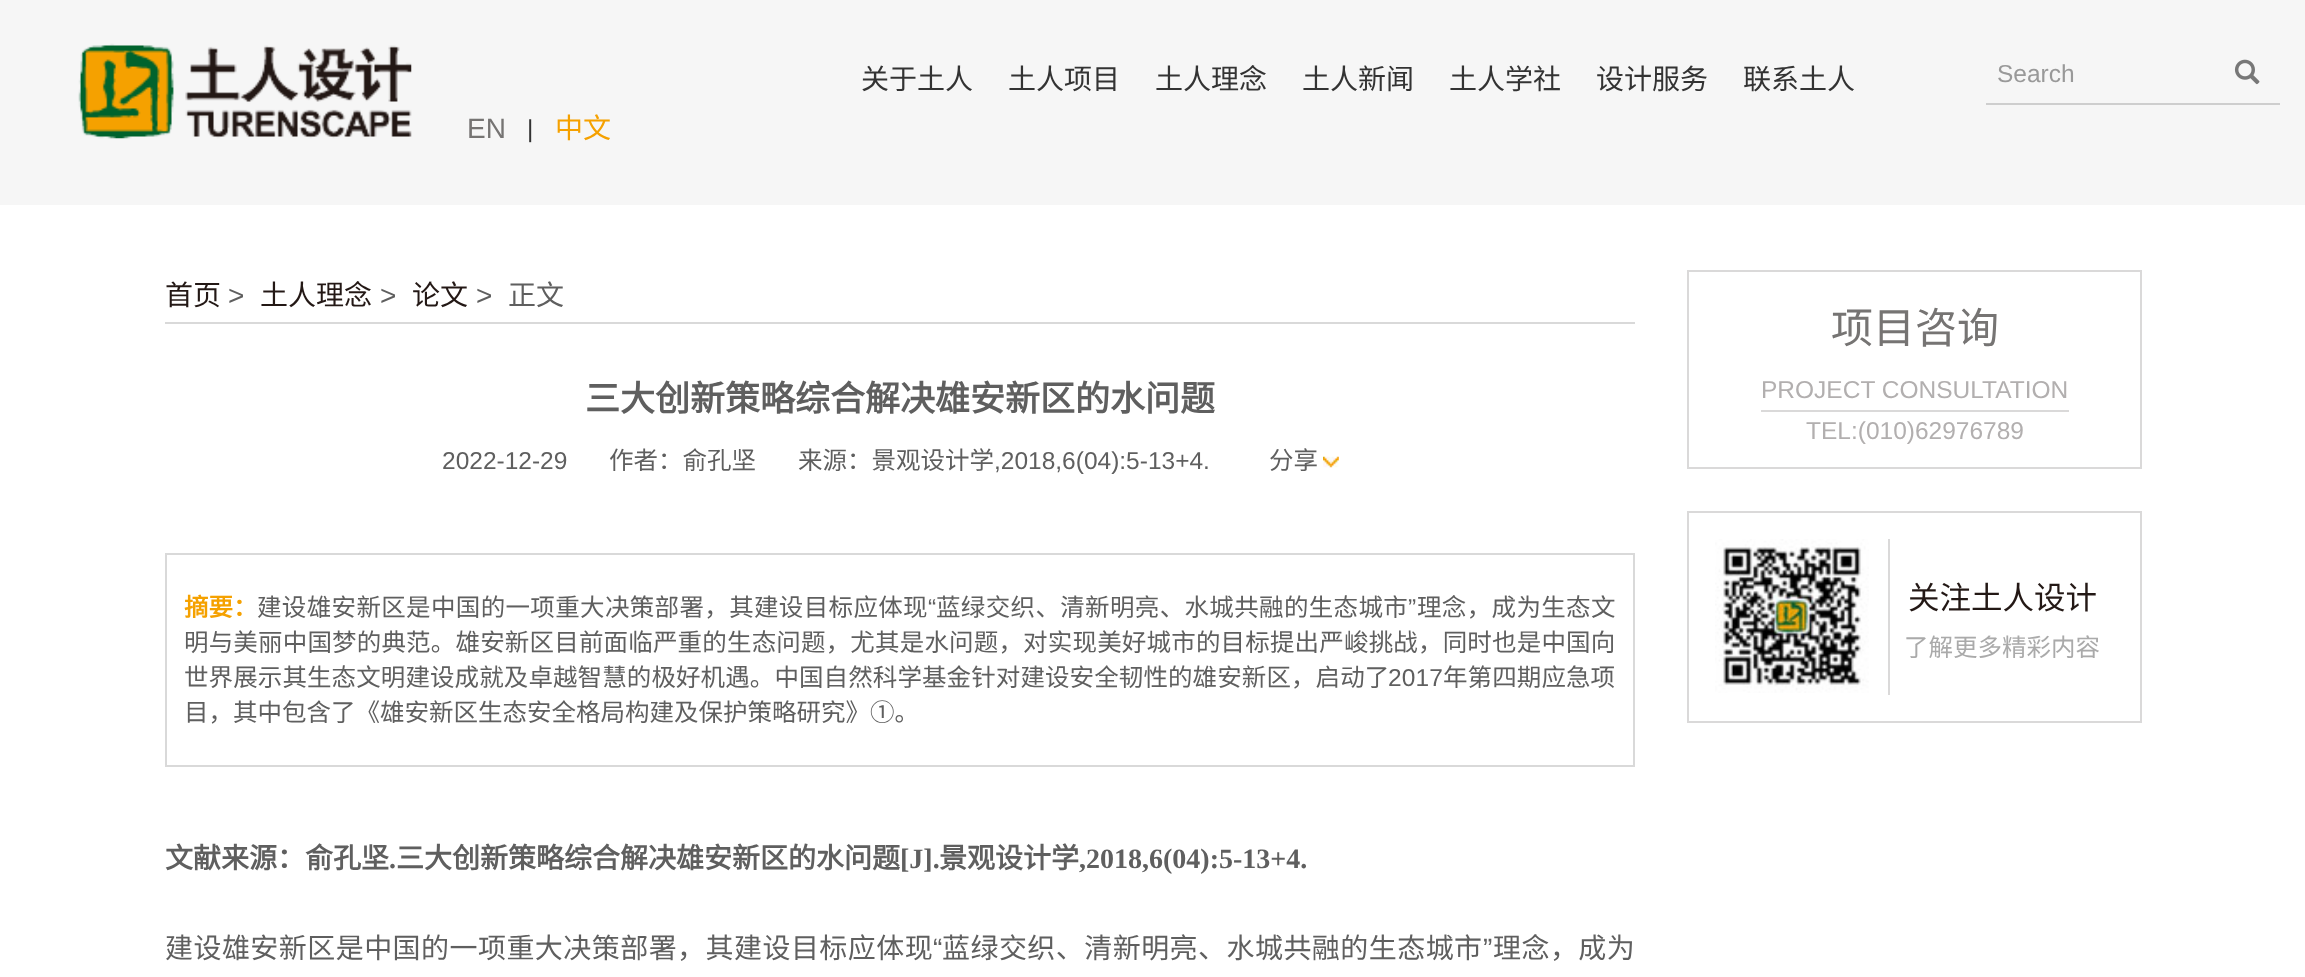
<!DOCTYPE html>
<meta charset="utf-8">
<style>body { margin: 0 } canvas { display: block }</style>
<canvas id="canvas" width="2305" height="977"></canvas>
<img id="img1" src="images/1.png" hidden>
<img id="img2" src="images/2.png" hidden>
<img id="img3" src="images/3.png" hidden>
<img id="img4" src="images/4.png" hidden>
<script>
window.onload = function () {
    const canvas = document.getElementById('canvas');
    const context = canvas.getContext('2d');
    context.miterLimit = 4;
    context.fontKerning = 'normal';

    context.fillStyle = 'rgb(255, 255, 255)';
    context.fillRect(0, 0, 2305, 977);
    context.fillStyle = 'rgb(246, 246, 246)';
    context.fillRect(0, 0, 2305, 205);
    context.fillStyle = 'rgb(206, 206, 206)';
    context.fillRect(1986, 103, 294, 2);
    context.drawImage(document.getElementById('img1'), 2234, 59, 26, 26);
    context.drawImage(document.getElementById('img2'), 78, 43, 334, 96);
    context.fillStyle = 'rgb(217, 217, 217)';
    context.fillRect(165, 322, 1470, 2);
    context.drawImage(document.getElementById('img3'), 1323, 456, 16, 12);
    context.strokeStyle = 'rgb(217, 217, 217)';
    context.lineWidth = 2;
    context.strokeRect(166, 554, 1468, 212);
    context.strokeStyle = 'rgb(218, 217, 217)';
    context.strokeRect(1688, 271, 453, 197);
    context.fillStyle = 'rgb(218, 217, 217)';
    context.fillRect(1761, 410, 308, 2);
    context.strokeRect(1688, 512, 453, 210);
    context.drawImage(document.getElementById('img4'), 1715, 539, 154, 154);
    context.fillRect(1888, 539, 2, 156);
    context.font = '28px Noto Sans CJK SC';
    context.fillStyle = 'rgb(51, 51, 51)';
    context.fillText('关于土人', 861, 89);
    context.fillText('土人项目', 1008, 89);
    context.fillText('土人理念', 1155, 89);
    context.fillText('土人新闻', 1302, 89);
    context.fillText('土人学社', 1449, 89);
    context.fillText('设计服务', 1596, 89);
    context.fillText('联系土人', 1743, 89);
    context.font = '24.5px Liberation Sans';
    context.fillStyle = 'rgb(153, 153, 153)';
    context.fillText('Search', 1997, 82);
    context.font = '28px Liberation Sans';
    context.fillStyle = 'rgb(118, 116, 115)';
    context.fillText('EN', 467, 138);
    context.font = '24.5px Liberation Sans';
    context.fillStyle = 'rgb(51, 51, 51)';
    context.fillText('|', 527, 137);
    context.font = '28px Noto Sans CJK SC';
    context.fillStyle = 'rgb(245, 161, 0)';
    context.fillText('中文', 555, 138);
    context.fillStyle = 'rgb(35, 24, 21)';
    context.fillText('首页', 165, 305);
    context.font = '28px Liberation Sans';
    context.fillStyle = 'rgb(95, 95, 95)';
    context.fillText('>', 228, 305);
    context.font = '28px Noto Sans CJK SC';
    context.fillStyle = 'rgb(35, 24, 21)';
    context.fillText('土人理念', 260, 305);
    context.font = '28px Liberation Sans';
    context.fillStyle = 'rgb(95, 95, 95)';
    context.fillText('>', 380, 305);
    context.font = '28px Noto Sans CJK SC';
    context.fillStyle = 'rgb(35, 24, 21)';
    context.fillText('论文', 412, 305);
    context.font = '28px Liberation Sans';
    context.fillStyle = 'rgb(95, 95, 95)';
    context.fillText('>', 476, 305);
    context.font = '28px Noto Sans CJK SC';
    context.fillText('正文', 508, 305);
    context.font = 'bold 35px Noto Sans CJK SC';
    context.fillText('三大创新策略综合解决雄安新区的水问题', 585, 411);
    context.font = '24.5px Liberation Sans';
    context.fillText('2022-12-29', 442, 469);
    context.font = '24.5px Noto Sans CJK SC';
    context.fillText('作者：俞孔坚', 609, 469);
    context.fillText('来源：景观设计学', 798, 469);
    context.font = '24.5px Liberation Sans';
    context.fillText(',2018,6(04):5-13+4.', 994, 469);
    context.font = '24.5px Noto Sans CJK SC';
    context.fillText('分享', 1269, 469);
    context.font = 'bold 24.5px Noto Sans CJK SC';
    context.fillStyle = 'rgb(245, 161, 0)';
    context.fillText('摘要：', 184, 616);
    context.letterSpacing = '0.35px';
    context.font = '24.5px Noto Sans CJK SC';
    context.fillStyle = 'rgb(95, 95, 95)';
    context.fillText('建设雄安新区是中国的一项重大决策部署，其建设目标应体现', 257, 616);
    context.font = '24.5px Liberation Sans';
    context.fillText('“', 928, 616);
    context.font = '24.5px Noto Sans CJK SC';
    context.fillText('蓝绿交织、清新明亮、水城共融的生态城市', 936, 616);
    context.font = '24.5px Liberation Sans';
    context.fillText('”', 1408, 616);
    context.font = '24.5px Noto Sans CJK SC';
    context.fillText('理念，成为生态文', 1417, 616);
    context.letterSpacing = '0.18px';
    context.fillText('明与美丽中国梦的典范。雄安新区目前面临严重的生态问题，尤其是水问题，对实现美好城市的目标提出严峻挑战，同时也是中国向', 184, 651);
    context.letterSpacing = '0.1px';
    context.fillText('世界展示其生态文明建设成就及卓越智慧的极好机遇。中国自然科学基金针对建设安全韧性的雄安新区，启动了', 184, 686);
    context.font = '24.5px Liberation Sans';
    context.fillText('2017', 1388, 686);
    context.font = '24.5px Noto Sans CJK SC';
    context.fillText('年第四期应急项', 1443, 686);
    context.letterSpacing = '0px';
    context.fillText('目，其中包含了《雄安新区生态安全格局构建及保护策略研究》①。', 184, 721);
    context.font = 'bold 28px Noto Sans CJK SC';
    context.fillText('文献来源：俞孔坚', 165, 868);
    context.font = 'bold 28px Liberation Serif';
    context.fillText('.', 389, 868);
    context.font = 'bold 28px Noto Sans CJK SC';
    context.fillText('三大创新策略综合解决雄安新区的水问题', 396, 868);
    context.font = 'bold 28px Liberation Serif';
    context.fillText('[J].', 900, 868);
    context.font = 'bold 28px Noto Sans CJK SC';
    context.fillText('景观设计学', 939, 868);
    context.font = 'bold 28px Liberation Serif';
    context.fillText(',2018,6(04):5-13+4.', 1079, 868);
    context.letterSpacing = '0.45px';
    context.font = '28px Noto Sans CJK SC';
    context.fillText('建设雄安新区是中国的一项重大决策部署，其建设目标应体现', 165, 958);
    context.font = '28px Liberation Sans';
    context.fillText('“', 933, 958);
    context.font = '28px Noto Sans CJK SC';
    context.fillText('蓝绿交织、清新明亮、水城共融的生态城市', 942, 958);
    context.font = '28px Liberation Sans';
    context.fillText('”', 1483, 958);
    context.font = '28px Noto Sans CJK SC';
    context.fillText('理念，成为', 1493, 958);
    context.letterSpacing = '0px';
    context.font = '42px Noto Sans CJK SC';
    context.fillStyle = 'rgb(118, 116, 115)';
    context.fillText('项目咨询', 1831, 343);
    context.font = '24.5px Liberation Sans';
    context.fillStyle = 'rgb(178, 175, 175)';
    context.fillText('PROJECT CONSULTATION', 1761, 398);
    context.fillText('TEL:(010)62976789', 1806, 439);
    context.font = '31.5px Noto Sans CJK SC';
    context.fillStyle = 'rgb(35, 24, 21)';
    context.fillText('关注土人设计', 1908, 609);
    context.font = '24.5px Noto Sans CJK SC';
    context.fillStyle = 'rgb(170, 170, 170)';
    context.fillText('了解更多精彩内容', 1904, 656);
};
</script>
